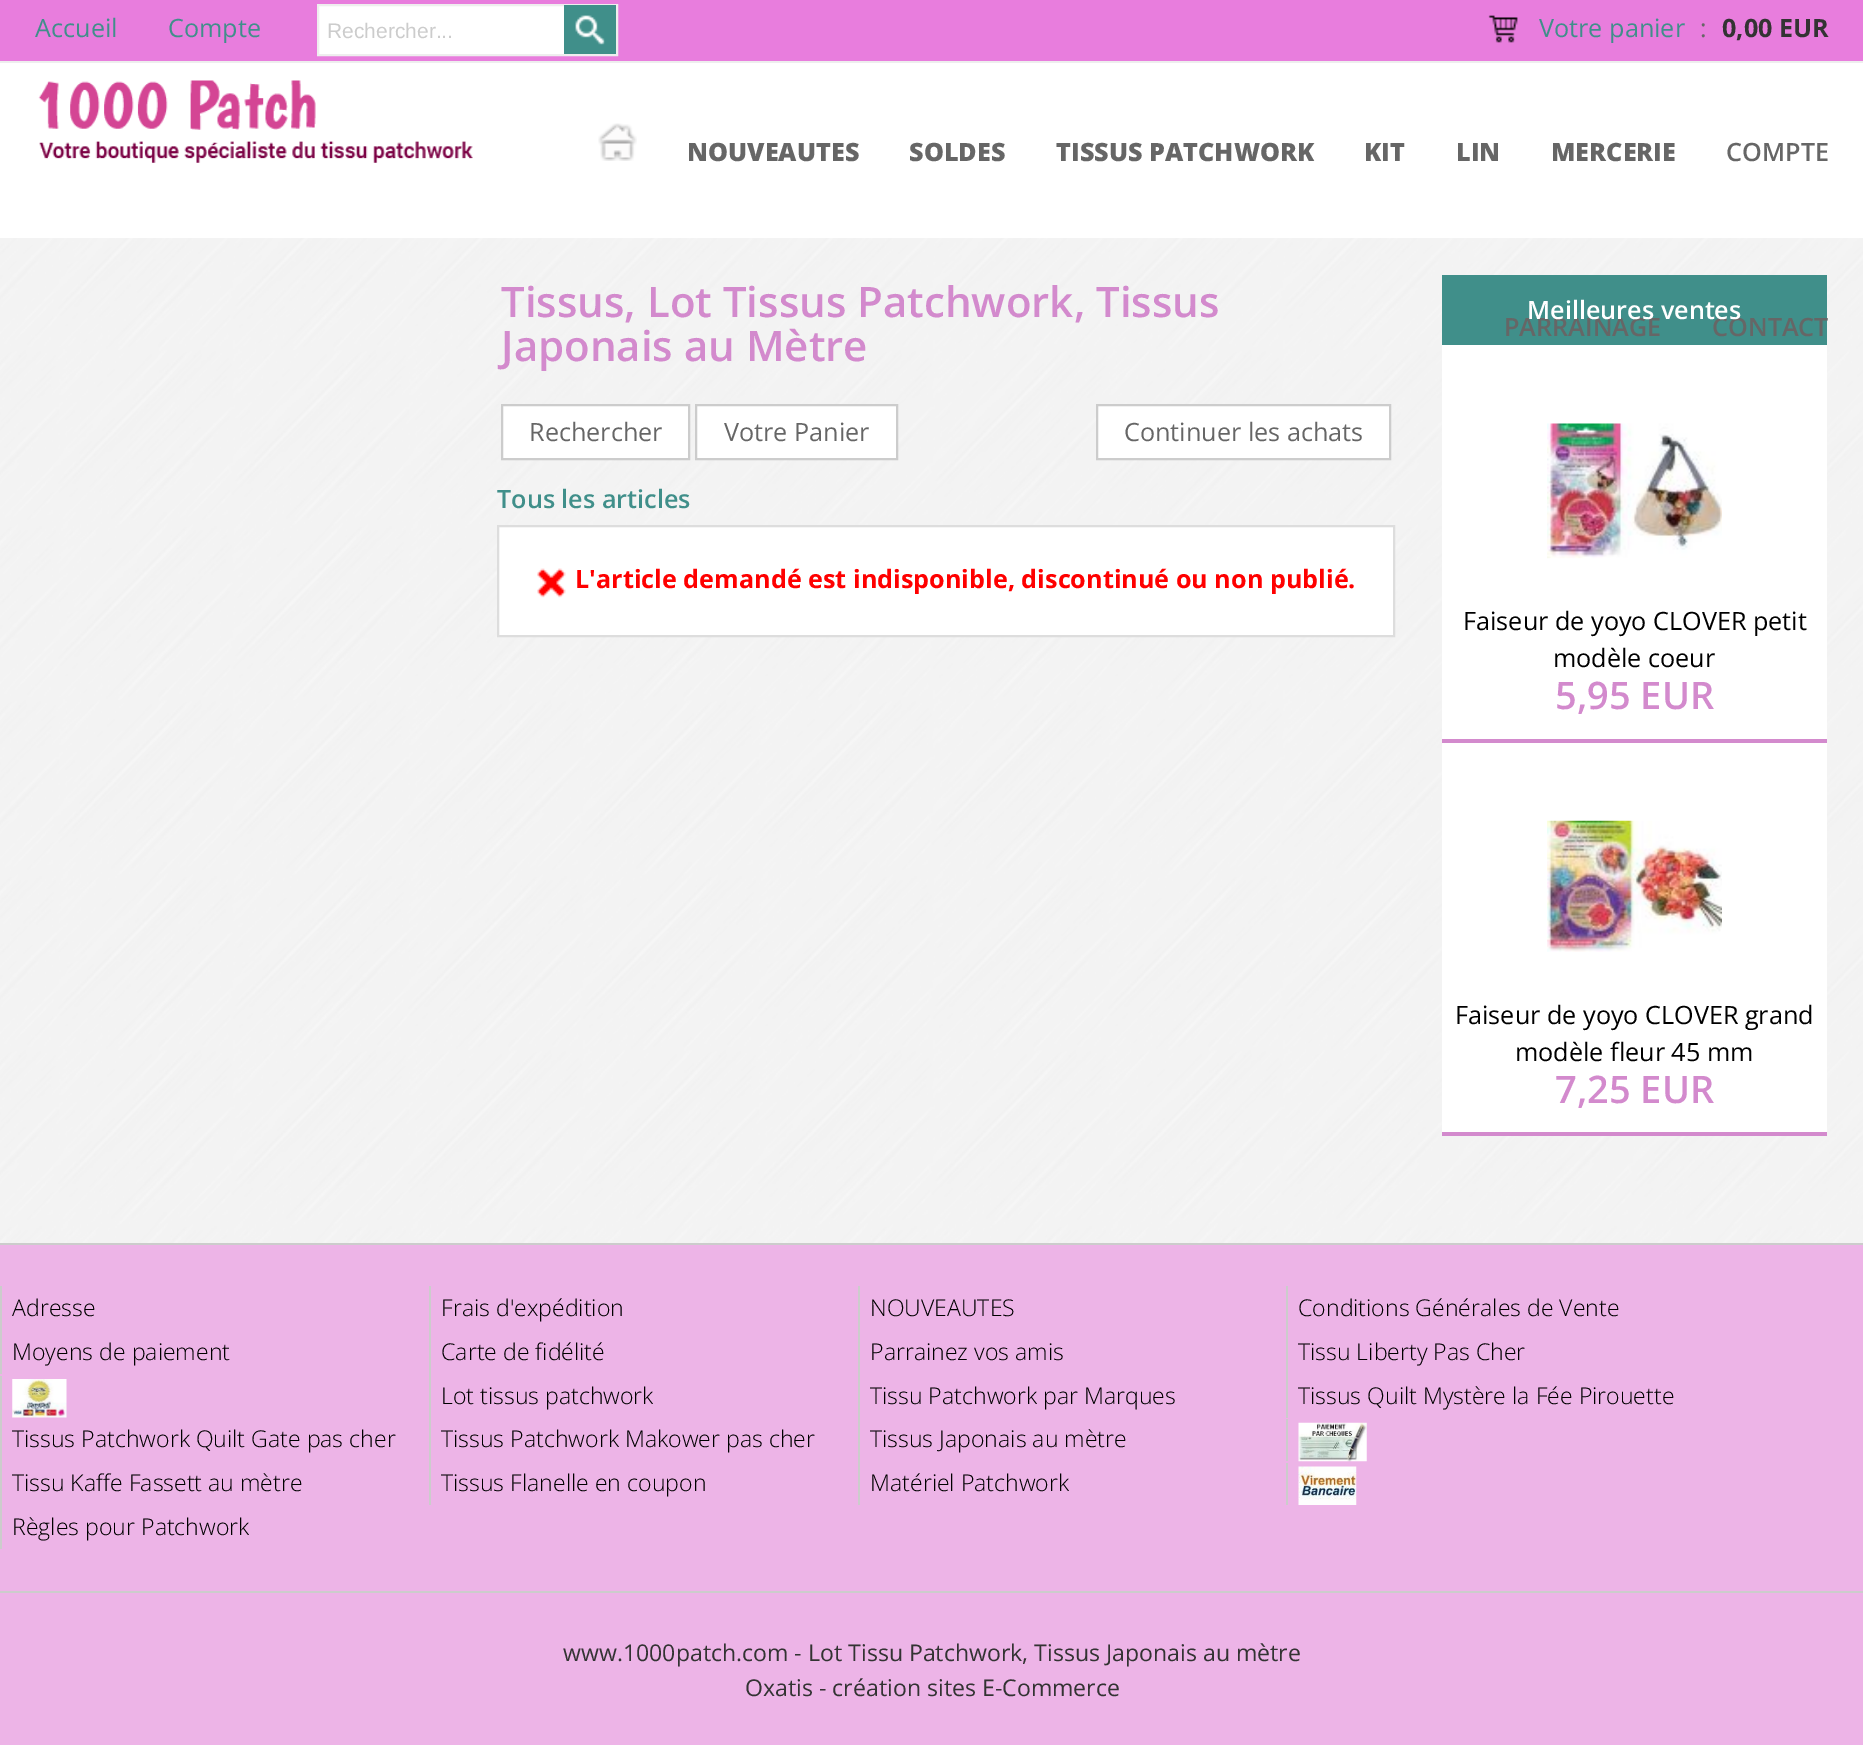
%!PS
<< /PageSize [1863 1745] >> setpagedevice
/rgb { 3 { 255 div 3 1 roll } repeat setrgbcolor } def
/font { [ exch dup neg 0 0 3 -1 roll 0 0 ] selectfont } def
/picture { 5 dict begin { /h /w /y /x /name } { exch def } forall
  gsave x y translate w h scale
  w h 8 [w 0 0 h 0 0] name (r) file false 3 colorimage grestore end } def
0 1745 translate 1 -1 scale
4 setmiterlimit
255 255 255 rgb
0 0 1863 1745 rectfill
[
  [0 0 1863 61 232 125 221]
  [0 61 1863 2 238 238 238]
  [319 6 245 48 255 255 255]
] { aload pop rgb rectfill } forall
238 238 238 rgb
2 setlinewidth
318 5 299 50 rectstroke
64 143 138 rgb
564 5 52 49 rectfill
(img/1.rgb) 575 15 30 30 picture
(img/2.rgb) 1488 15 30 28 picture
(img/3.rgb) 38 80 435 83 picture
(img/4.rgb) 598 123 39 38 picture
(img/5.rgb) 0 238 1863 1005 picture
255 255 255 rgb
502 405 moveto 689 405 lineto 689 459 lineto 502 459 lineto closepath gsave fill grestore
204 204 204 rgb
stroke
255 255 255 rgb
696 405 moveto 897 405 lineto 897 459 lineto 696 459 lineto closepath gsave fill grestore
204 204 204 rgb
stroke
255 255 255 rgb
1097 405 moveto 1390 405 lineto 1390 459 lineto 1097 459 lineto closepath gsave fill grestore
204 204 204 rgb
stroke
255 255 255 rgb
498 526 moveto 1394 526 lineto 1394 636 lineto 498 636 lineto closepath gsave fill grestore
221 221 221 rgb
stroke
(img/6.rgb) 537 568 29 30 picture
[
  [1442 345 385 787 255 255 255]
  [1442 275 385 70 64 143 138]
  [1442 739 385 4 211 138 205]
] { aload pop rgb rectfill } forall
(img/7.rgb) 1547 423 175 136 picture
1442 1132 385 4 rectfill
(img/8.rgb) 1547 820 175 132 picture
[
  [0 1245 1863 500 237 180 231]
  [0 1243 1863 2 204 204 204]
  [0 1591 1863 2 204 204 204]
  [0 1286 2 88 204 204 204]
  [429 1286 2 219 204 204 204]
  [858 1286 2 219 204 204 204]
  [1286 1286 2 132 204 204 204]
  [0 1376 2 173 204 204 204]
] { aload pop rgb rectfill } forall
(img/9.rgb) 12 1379 55 39 picture
1286 1419 2 42 rectfill
(img/10.rgb) 1298 1422 69 40 picture
1286 1463 2 42 rectfill
(img/11.rgb) 1298 1466 59 39 picture
/OpenSans-Regular 25.2 font
64 143 138 rgb
35 37 moveto (Accueil) show
168 37 moveto (Compte) show
/LiberationSans-Regular 21 font
204 204 204 rgb
327 38 moveto (Rechercher...) show
/OpenSans-Regular 25.2 font
64 143 138 rgb
1539 37 moveto (Votre panier) show
102 102 102 rgb
1700 37 moveto (:) show
/OpenSans-Bold 25.2 font
51 51 51 rgb
1722 37 moveto (0,00 EUR) show
/OpenSans-ExtraBold 25.2 font
102 102 102 rgb
[
  [(NOUVEAUTES) 687 161]
  [(SOLDES) 909 161]
  [(TISSUS PATCHWORK) 1056 161]
  [(KIT) 1364 161]
  [(LIN) 1456 161]
  [(MERCERIE) 1551 161]
] { aload pop moveto show } forall
/OpenSans-SemiBold 25.2 font
[
  [(COMPTE) 1726 161]
  [(PARRAINAGE) 1504 336]
  [(CONTACT) 1712 336]
] { aload pop moveto show } forall
/OpenSans-SemiBold 42 font
211 138 205 rgb
501 317 moveto (Tissus, Lot Tissus Patchwork, Tissus) show
501 361 moveto (Japonais au Mètre) show
/OpenSans-Regular 25.2 font
102 102 102 rgb
[
  [(Rechercher) 529 441]
  [(Votre Panier) 724 441]
  [(Continuer les achats) 1124 441]
] { aload pop moveto show } forall
/OpenSans-SemiBold 25.2 font
64 143 138 rgb
497 508 moveto (Tous les articles) show
/OpenSans-Bold 25.2 font
255 0 0 rgb
575 588 moveto (L'article demandé est indisponible, discontinué ou non publié.) show
/OpenSans-SemiBold 25.2 font
255 255 255 rgb
1527 319 moveto (Meilleures ventes) show
/OpenSans-Regular 25.2 font
0 0 0 rgb
1463 630 moveto (Faiseur de yoyo CLOVER petit) show
1553 667 moveto (modèle coeur) show
/OpenSans-SemiBold 38 font
211 138 205 rgb
1555 709 moveto (5,95 EUR) show
/OpenSans-Regular 25.2 font
0 0 0 rgb
1455 1024 moveto (Faiseur de yoyo CLOVER grand) show
1515 1061 moveto (modèle fleur 45 mm) show
/OpenSans-SemiBold 38 font
211 138 205 rgb
1555 1103 moveto (7,25 EUR) show
/OpenSans-Light 23.1 font
0 0 0 rgb
[
  [(Adresse) 12 1316]
  [(Frais d'expédition) 441 1316]
  [(NOUVEAUTES) 870 1316]
  [(Conditions Générales de Vente) 1298 1316]
  [(Moyens de paiement) 12 1360]
  [(Carte de fidélité) 441 1360]
  [(Parrainez vos amis) 870 1360]
  [(Tissu Liberty Pas Cher) 1298 1360]
  [(Lot tissus patchwork) 441 1404]
  [(Tissu Patchwork par Marques) 870 1404]
  [(Tissus Quilt Mystère la Fée Pirouette) 1298 1404]
  [(Tissus Patchwork Quilt Gate pas cher) 12 1447]
  [(Tissus Patchwork Makower pas cher) 441 1447]
  [(Tissus Japonais au mètre) 870 1447]
  [(Tissu Kaffe Fassett au mètre) 12 1491]
  [(Tissus Flanelle en coupon) 441 1491]
  [(Matériel Patchwork) 870 1491]
  [(Règles pour Patchwork) 12 1535]
] { aload pop moveto show } forall
/OpenSans-Regular 23.1 font
51 51 51 rgb
563 1661 moveto (www.1000patch.com - Lot Tissu Patchwork, Tissus Japonais au mètre) show
745 1696 moveto (Oxatis - création sites E-Commerce) show
showpage
